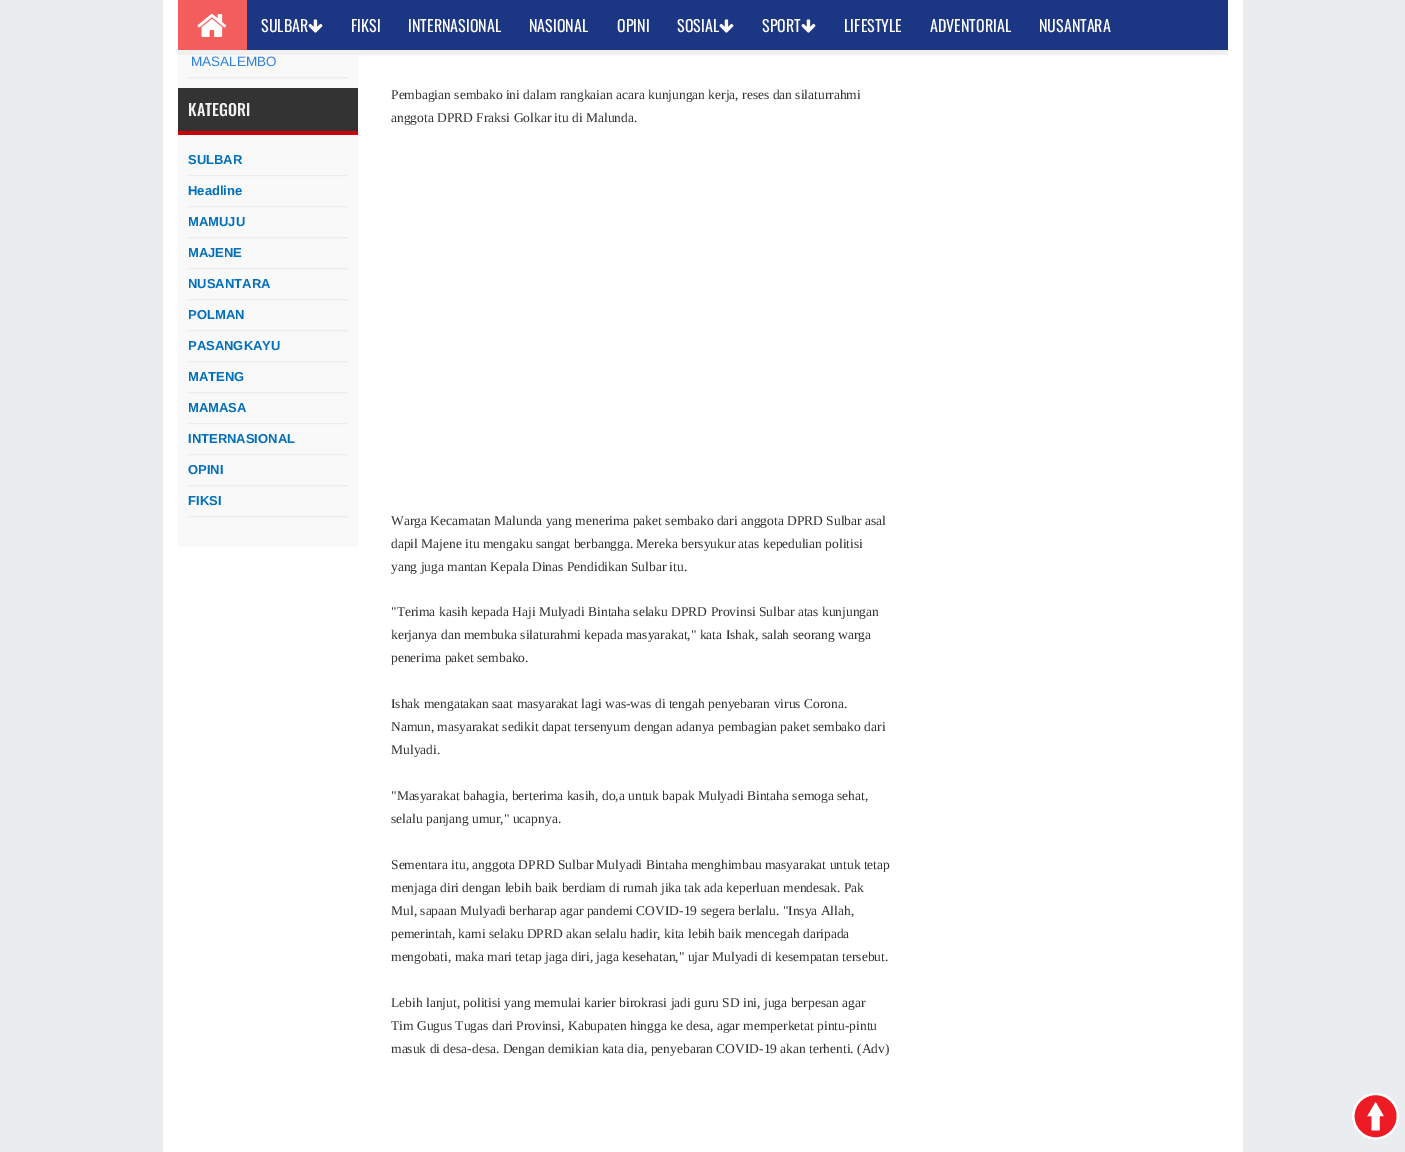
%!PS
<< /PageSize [1405 1152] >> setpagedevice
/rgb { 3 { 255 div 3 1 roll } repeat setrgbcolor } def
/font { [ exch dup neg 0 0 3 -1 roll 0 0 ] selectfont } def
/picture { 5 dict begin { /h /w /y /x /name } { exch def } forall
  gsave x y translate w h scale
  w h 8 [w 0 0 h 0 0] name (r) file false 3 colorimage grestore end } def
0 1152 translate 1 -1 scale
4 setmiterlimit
234 237 240 rgb
0 0 1405 1152 rectfill
[
  [163 0 1080 1152 255 255 255]
  [178 50 1050 5 240 240 240]
  [247 0 981 50 27 54 130]
  [178 0 69 50 243 93 92]
] { aload pop rgb rectfill } forall
(img/1.rgb) 197 14 30 23 picture
(img/2.rgb) 308 19 15 14 picture
(img/2.rgb) 719 19 15 14 picture
(img/2.rgb) 801 19 15 14 picture
249 249 249 rgb
178 55 180 492 rectfill
224 224 224 rgb
[1 1] 0 setdash
188 77.5 moveto 348 77.5 lineto stroke
51 51 51 rgb
178 88 180 43 rectfill
204 0 0 rgb
178 131 180 4 rectfill
224 224 224 rgb
188 175.5 moveto 348 175.5 lineto stroke
188 206.5 moveto 348 206.5 lineto stroke
188 237.5 moveto 348 237.5 lineto stroke
188 268.5 moveto 348 268.5 lineto stroke
188 299.5 moveto 348 299.5 lineto stroke
188 330.5 moveto 348 330.5 lineto stroke
188 361.5 moveto 348 361.5 lineto stroke
188 392.5 moveto 348 392.5 lineto stroke
188 423.5 moveto 348 423.5 lineto stroke
188 454.5 moveto 348 454.5 lineto stroke
188 485.5 moveto 348 485.5 lineto stroke
188 516.5 moveto 348 516.5 lineto stroke
(img/3.rgb) 1352 1093 47 47 picture
/Oswald-Regular 16 font
255 255 255 rgb
[
  [(SULBAR) 261 32]
  [(FIKSI) 351 32]
  [(INTERNASIONAL) 408 32]
  [(NASIONAL) 529 32]
  [(OPINI) 617 32]
  [(SOSIAL) 677 32]
  [(SPORT) 762 32]
  [(LIFESTYLE) 844 32]
  [(ADVENTORIAL) 930 32]
  [(NUSANTARA) 1039 32]
] { aload pop moveto show } forall
/LiberationSans-Regular 13.5 font
47 131 221 rgb
191 66 moveto (MASALEMBO) show
/Oswald-Medium 16 font
241 241 241 rgb
188 116 moveto (KATEGORI) show
/LiberationSans-Bold 13 font
1 111 186 rgb
[
  [(SULBAR) 188 164]
  [(Headline) 188 195]
  [(MAMUJU) 188 226]
  [(MAJENE) 188 257]
  [(NUSANTARA) 188 288]
  [(POLMAN) 188 319]
  [(PASANGKAYU) 188 350]
  [(MATENG) 188 381]
  [(MAMASA) 188 412]
  [(INTERNASIONAL) 188 443]
  [(OPINI) 188 474]
  [(FIKSI) 188 505]
] { aload pop moveto show } forall
/LiberationSerif-Regular 13.5 font
51 51 51 rgb
[
  [(Pembagian sembako ini dalam rangkaian acara kunjungan kerja, reses dan silaturrahmi) 391 99]
  [(anggota DPRD Fraksi Golkar itu di Malunda.) 391 122]
  [(Warga Kecamatan Malunda yang menerima paket sembako dari anggota DPRD Sulbar asal) 391 525]
  [(dapil Majene itu mengaku sangat berbangga. Mereka bersyukur atas kepedulian politisi) 391 548]
  [(yang juga mantan Kepala Dinas Pendidikan Sulbar itu.) 391 571]
  [("Terima kasih kepada Haji Mulyadi Bintaha selaku DPRD Provinsi Sulbar atas kunjungan) 391 616]
  [(kerjanya dan membuka silaturahmi kepada masyarakat," kata Ishak, salah seorang warga) 391 639]
  [(penerima paket sembako.) 391 662]
  [(Ishak mengatakan saat masyarakat lagi was-was di tengah penyebaran virus Corona.) 391 708]
  [(Namun, masyarakat sedikit dapat tersenyum dengan adanya pembagian paket sembako dari) 391 731]
  [(Mulyadi.) 391 754]
  [("Masyarakat bahagia, berterima kasih, do,a untuk bapak Mulyadi Bintaha semoga sehat,) 391 800]
  [(selalu panjang umur," ucapnya.) 391 823]
  [(Sementara itu, anggota DPRD Sulbar Mulyadi Bintaha menghimbau masyarakat untuk tetap) 391 869]
  [(menjaga diri dengan lebih baik berdiam di rumah jika tak ada keperluan mendesak. Pak) 391 892]
  [(Mul, sapaan Mulyadi berharap agar pandemi COVID-19 segera berlalu. "Insya Allah,) 391 915]
  [(pemerintah, kami selaku DPRD akan selalu hadir, kita lebih baik mencegah daripada) 391 938]
  [(mengobati, maka mari tetap jaga diri, jaga kesehatan," ujar Mulyadi di kesempatan tersebut.) 391 961]
  [(Lebih lanjut, politisi yang memulai karier birokrasi jadi guru SD ini, juga berpesan agar) 391 1007]
  [(Tim Gugus Tugas dari Provinsi, Kabupaten hingga ke desa, agar memperketat pintu-pintu) 391 1030]
  [(masuk di desa-desa. Dengan demikian kata dia, penyebaran COVID-19 akan terhenti. \(Adv\)) 391 1053]
] { aload pop moveto show } forall
showpage
